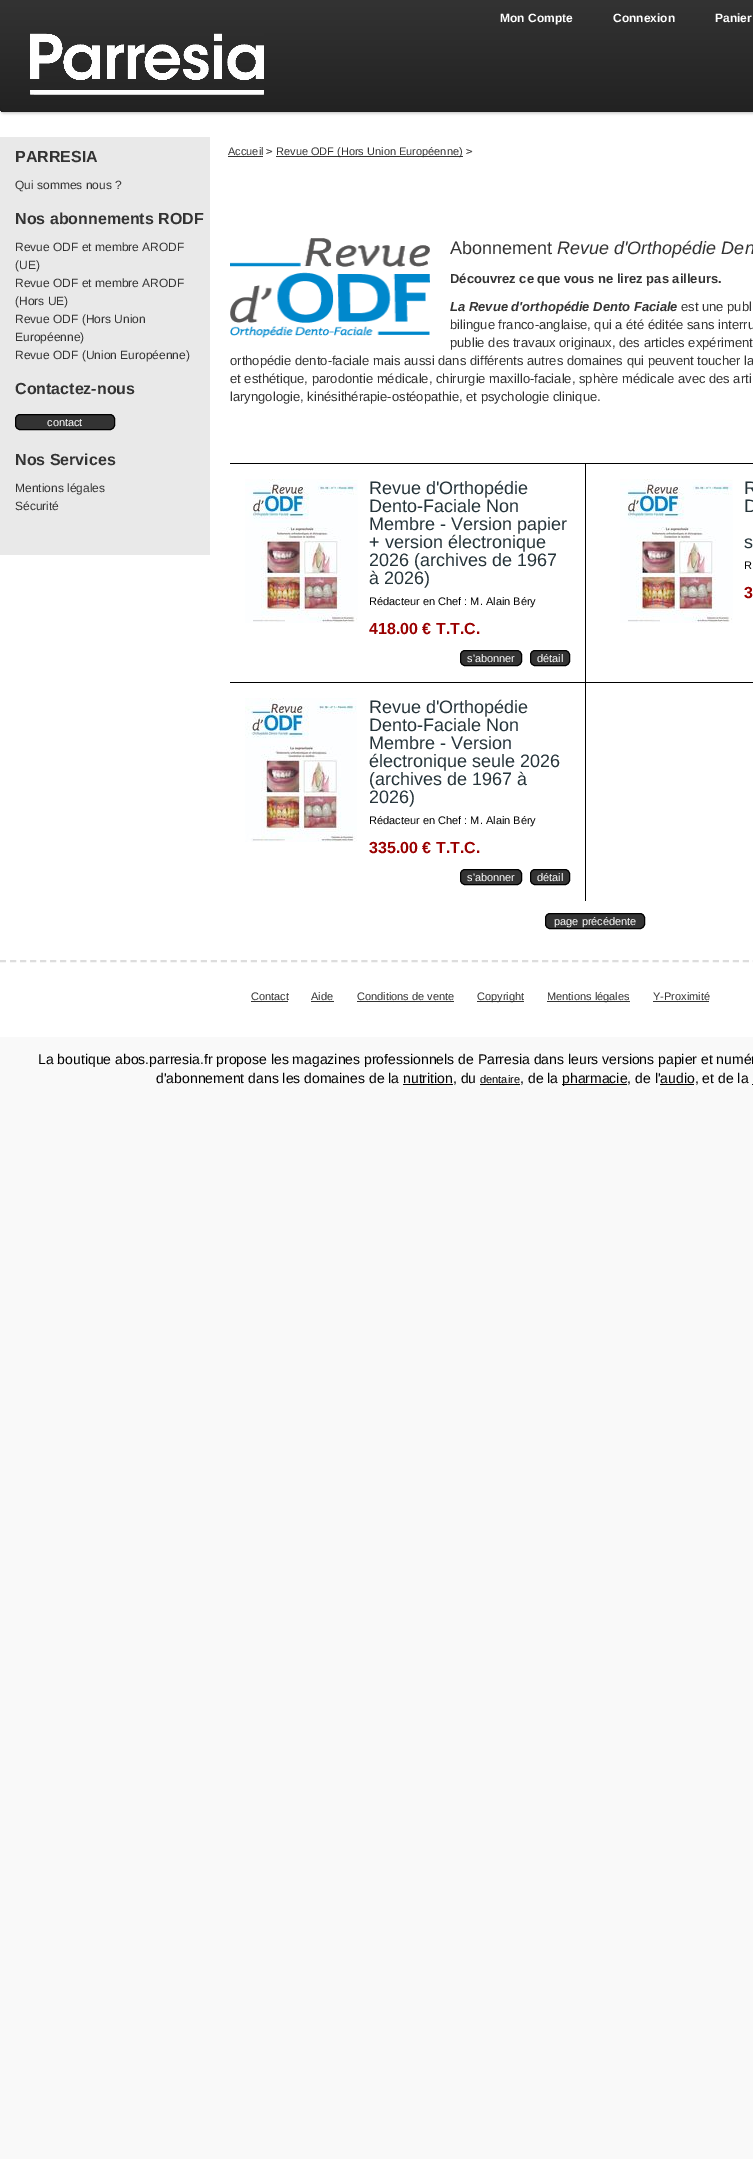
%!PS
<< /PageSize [753 2159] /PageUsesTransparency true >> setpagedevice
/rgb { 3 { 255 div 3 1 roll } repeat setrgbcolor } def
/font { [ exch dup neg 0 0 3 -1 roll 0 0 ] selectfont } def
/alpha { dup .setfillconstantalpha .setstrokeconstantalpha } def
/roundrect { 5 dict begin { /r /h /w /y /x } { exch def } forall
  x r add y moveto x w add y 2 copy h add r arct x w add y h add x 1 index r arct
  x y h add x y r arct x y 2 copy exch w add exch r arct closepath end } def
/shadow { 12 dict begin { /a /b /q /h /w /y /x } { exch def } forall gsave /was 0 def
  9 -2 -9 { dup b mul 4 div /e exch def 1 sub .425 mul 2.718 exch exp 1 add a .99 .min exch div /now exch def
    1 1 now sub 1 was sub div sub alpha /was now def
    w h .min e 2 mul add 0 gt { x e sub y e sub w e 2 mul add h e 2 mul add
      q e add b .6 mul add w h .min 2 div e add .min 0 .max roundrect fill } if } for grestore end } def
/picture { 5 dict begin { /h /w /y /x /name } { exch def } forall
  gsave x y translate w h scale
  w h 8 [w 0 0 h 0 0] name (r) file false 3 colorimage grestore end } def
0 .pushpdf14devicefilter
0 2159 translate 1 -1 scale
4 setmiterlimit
249 249 249 rgb
0 0 753 2159 rectfill
255 255 255 rgb
0 108 753 929 rectfill
0 0 0 rgb
0 1 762 112 4 1.5 0.25 shadow
gsave 0 0 moveto 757 0 lineto 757 108 lineto 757 110 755 112 753 112 curveto 4 112 lineto 2 112 0 110 0 108 curveto closepath clip newpath
<< /ShadingType 2 /ColorSpace /DeviceRGB /Coords [480 0 480 112] /Extend [true true] /Function << /FunctionType 2 /Domain [0 1] /C0 [0.2 0.2 0.2] /C1 [0.133 0.133 0.133] /N 1 >> >> shfill grestore
0.1 alpha
0 107 moveto 0 110 1 112 4 112 curveto 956 112 lineto 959 112 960 110 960 107 curveto 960 109 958 111 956 111 curveto 4 111 lineto 2 111 0 109 0 107 curveto closepath fill
1 alpha
(img/1.rgb) 30 33 234 62 picture
233 233 233 rgb
0 137 210 418 rectfill
51 51 51 rgb
15.5 414.5 99 15 4.5 roundrect gsave fill grestore
0 0 0 rgb
stroke
(img/2.rgb) 266 149 7 5 picture
51 51 51 rgb
228 156 35 1 rectfill
(img/2.rgb) 466 149 7 5 picture
276 156 187 1 rectfill
(img/3.rgb) 230 238 200 100 picture
0 0 0 rgb
230 463 523 1 rectfill
585 464 1 218 rectfill
(img/4.rgb) 245 479 113 144 picture
51 51 51 rgb
460.5 650.5 61 15 4.5 roundrect gsave fill grestore
0 0 0 rgb
stroke
51 51 51 rgb
530.5 650.5 39 15 4.5 roundrect gsave fill grestore
0 0 0 rgb
stroke
(img/4.rgb) 620 479 113 144 picture
230 682 523 1 rectfill
585 683 1 218 rectfill
(img/5.rgb) 245 698 112 144 picture
51 51 51 rgb
460.5 869.5 61 15 4.5 roundrect gsave fill grestore
0 0 0 rgb
stroke
51 51 51 rgb
530.5 869.5 39 15 4.5 roundrect gsave fill grestore
0 0 0 rgb
stroke
51 51 51 rgb
545.5 913.5 99 15 4.5 roundrect gsave fill grestore
0 0 0 rgb
stroke
221 221 221 rgb
2 setlinewidth
[6 4.04] 0 setdash
0 961 moveto 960 961 lineto stroke
[
  [251 1001 37 1 51 51 51]
  [311 1001 23 1 51 51 51]
  [357 1001 97 1 51 51 51]
  [477 1001 47 1 51 51 51]
  [547 1001 83 1 51 51 51]
  [653 1001 56 1 51 51 51]
  [403 1084 50 1 0 0 0]
  [480 1084 40 1 0 0 0]
  [562 1084 65 1 0 0 0]
  [660 1084 34 1 0 0 0]
  [752 1084 1 1 0 0 0]
] { aload pop rgb rectfill } forall
/LiberationSans-Bold 12 font
255 255 255 rgb
[
  [(Mon Compte) 500 22]
  [(Connexion) 613 22]
  [(Panier) 715 22]
] { aload pop moveto show } forall
/LiberationSans-Bold 16 font
51 51 51 rgb
15 162 moveto (PARRESIA) show
/LiberationSans-Regular 12 font
15 189 moveto (Qui sommes nous ?) show
/LiberationSans-Bold 16 font
15 224 moveto (Nos abonnements RODF) show
/LiberationSans-Regular 12 font
[
  [(Revue ODF et membre ARODF) 15 251]
  [(\(UE\)) 15 269]
  [(Revue ODF et membre ARODF) 15 287]
  [(\(Hors UE\)) 15 305]
  [(Revue ODF \(Hors Union) 15 323]
  [(Européenne\)) 15 341]
  [(Revue ODF \(Union Européenne\)) 15 359]
] { aload pop moveto show } forall
/LiberationSans-Bold 16 font
15 394 moveto (Contactez-nous) show
/LiberationSans-Regular 11 font
255 255 255 rgb
47 426 moveto (contact) show
/LiberationSans-Bold 16 font
51 51 51 rgb
15 465 moveto (Nos Services) show
/LiberationSans-Regular 12 font
15 492 moveto (Mentions légales) show
15 510 moveto (Sécurité) show
/LiberationSans-Regular 11 font
228 155 moveto (Accueil) show
276 155 moveto (Revue ODF \(Hors Union Européenne\)) show
/LiberationSans-Regular 18 font
450 254 moveto (Abonnement) show
/LiberationSans-Italic 18 font
557 254 moveto (Revue d'Orthopédie Den) show
/LiberationSans-Bold 13 font
450 283 moveto (Découvrez ce que vous ne lirez pas ailleurs.) show
/LiberationSans-BoldItalic 13 font
450 311 moveto (La Revue d'orthopédie Dento Faciale) show
/LiberationSans-Regular 13 font
[
  [(est une publ) 681 311]
  [(bilingue franco-anglaise, qui a été éditée sans interru) 450 329]
  [(publie des travaux originaux, des articles expériment) 450 347]
  [(orthopédie dento-faciale mais aussi dans différents autres domaines qui peuvent toucher la) 230 365]
  [(et esthétique, parodontie médicale, chirurgie maxillo-faciale, sphère médicale avec des arti) 230 383]
  [(laryngologie, kinésithérapie-ostéopathie, et psychologie clinique.) 230 401]
] { aload pop moveto show } forall
/LiberationSans-Regular 18 font
38 52 58 rgb
[
  [(Revue d'Orthopédie) 369 494]
  [(Dento-Faciale Non) 369 512]
  [(Membre - Version papier) 369 530]
  [(+ version électronique) 369 548]
  [(2026 \(archives de 1967) 369 566]
  [(à 2026\)) 369 584]
] { aload pop moveto show } forall
/LiberationSans-Regular 11 font
0 0 0 rgb
369 605 moveto (Rédacteur en Chef : M. Alain Béry) show
/LiberationSans-Bold 16 font
153 0 0 rgb
369 634 moveto (418.00 € T.T.C.) show
/LiberationSans-Regular 11 font
255 255 255 rgb
467 662 moveto (s'abonner) show
537 662 moveto (détail) show
/LiberationSans-Regular 18 font
38 52 58 rgb
[
  [(R) 744 494]
  [(D) 744 512]
  [(s) 744 548]
] { aload pop moveto show } forall
/LiberationSans-Regular 11 font
0 0 0 rgb
744 569 moveto (R) show
/LiberationSans-Bold 16 font
153 0 0 rgb
744 598 moveto (3) show
/LiberationSans-Regular 18 font
38 52 58 rgb
[
  [(Revue d'Orthopédie) 369 713]
  [(Dento-Faciale Non) 369 731]
  [(Membre - Version) 369 749]
  [(électronique seule 2026) 369 767]
  [(\(archives de 1967 à) 369 785]
  [(2026\)) 369 803]
] { aload pop moveto show } forall
/LiberationSans-Regular 11 font
0 0 0 rgb
369 824 moveto (Rédacteur en Chef : M. Alain Béry) show
/LiberationSans-Bold 16 font
153 0 0 rgb
369 853 moveto (335.00 € T.T.C.) show
/LiberationSans-Regular 11 font
255 255 255 rgb
[
  [(s'abonner) 467 881]
  [(détail) 537 881]
  [(page précédente) 554 925]
] { aload pop moveto show } forall
51 51 51 rgb
[
  [(Contact) 251 1000]
  [(Aide) 311 1000]
  [(Conditions de vente) 357 1000]
  [(Copyright) 477 1000]
  [(Mentions légales) 547 1000]
  [(Y-Proximité) 653 1000]
] { aload pop moveto show } forall
/LiberationSans-Regular 14 font
0 0 0 rgb
38 1064 moveto (La boutique abos.parresia.fr propose les magazines professionnels de Parresia dans leurs versions papier et numér) show
156 1083 moveto (d'abonnement dans les domaines de la nutrition, du) show
/LiberationSans-Regular 11 font
480 1083 moveto (dentaire) show
/LiberationSans-Regular 14 font
520 1083 moveto (, de la) show
562 1083 moveto (pharmacie, de l'audio, et de la) show
.poppdf14devicefilter showpage
